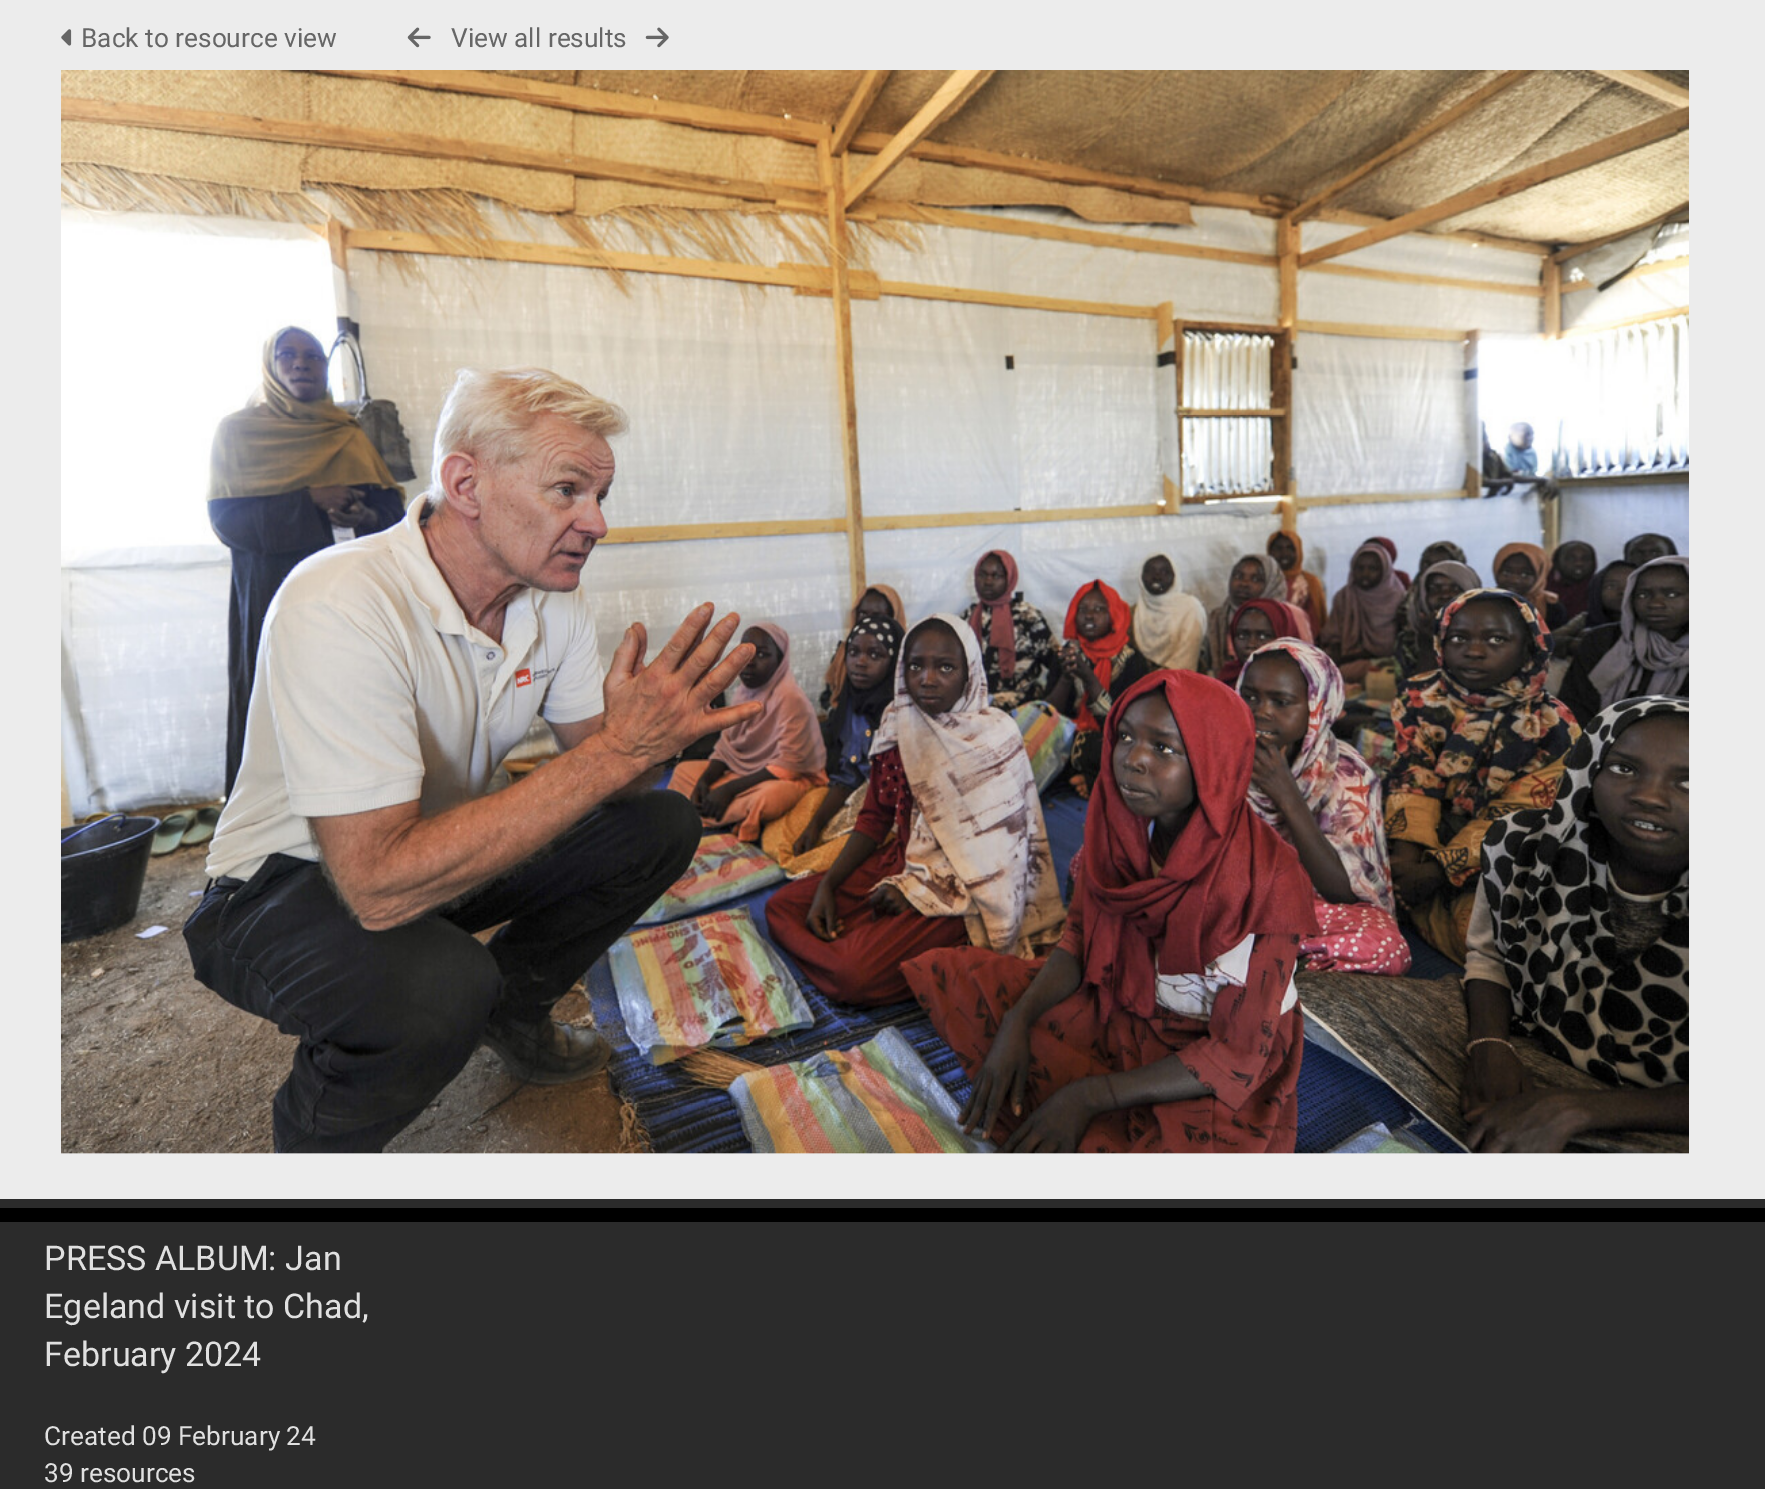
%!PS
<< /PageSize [1765 1489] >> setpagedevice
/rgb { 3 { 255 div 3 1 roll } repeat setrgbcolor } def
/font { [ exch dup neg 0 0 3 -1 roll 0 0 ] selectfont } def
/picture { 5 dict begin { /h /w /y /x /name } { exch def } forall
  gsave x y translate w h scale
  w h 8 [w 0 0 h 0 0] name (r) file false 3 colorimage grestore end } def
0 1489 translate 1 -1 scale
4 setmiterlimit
236 236 236 rgb
0 0 1765 1489 rectfill
(img/1.rgb) 61 29 11 17 picture
(img/2.rgb) 407 27 24 21 picture
(img/3.rgb) 645 27 24 21 picture
(img/4.rgb) 61 70 1628 1084 picture
[
  [0 1199 1765 9 43 43 43]
  [0 1208 1765 14 0 0 0]
  [0 1222 1765 267 43 43 43]
] { aload pop rgb rectfill } forall
/Roboto-Regular 26.25 font
102 102 102 rgb
81 47 moveto (Back to resource view) show
451 47 moveto (View all results) show
/Roboto-Regular 34.1 font
224 224 224 rgb
[
  [(PRESS ALBUM: Jan) 44 1270]
  [(Egeland visit to Chad,) 44 1318]
  [(February 2024) 44 1366]
] { aload pop moveto show } forall
/Roboto-Regular 26.25 font
44 1445 moveto (Created 09 February 24) show
44 1482 moveto (39 resources) show
showpage
